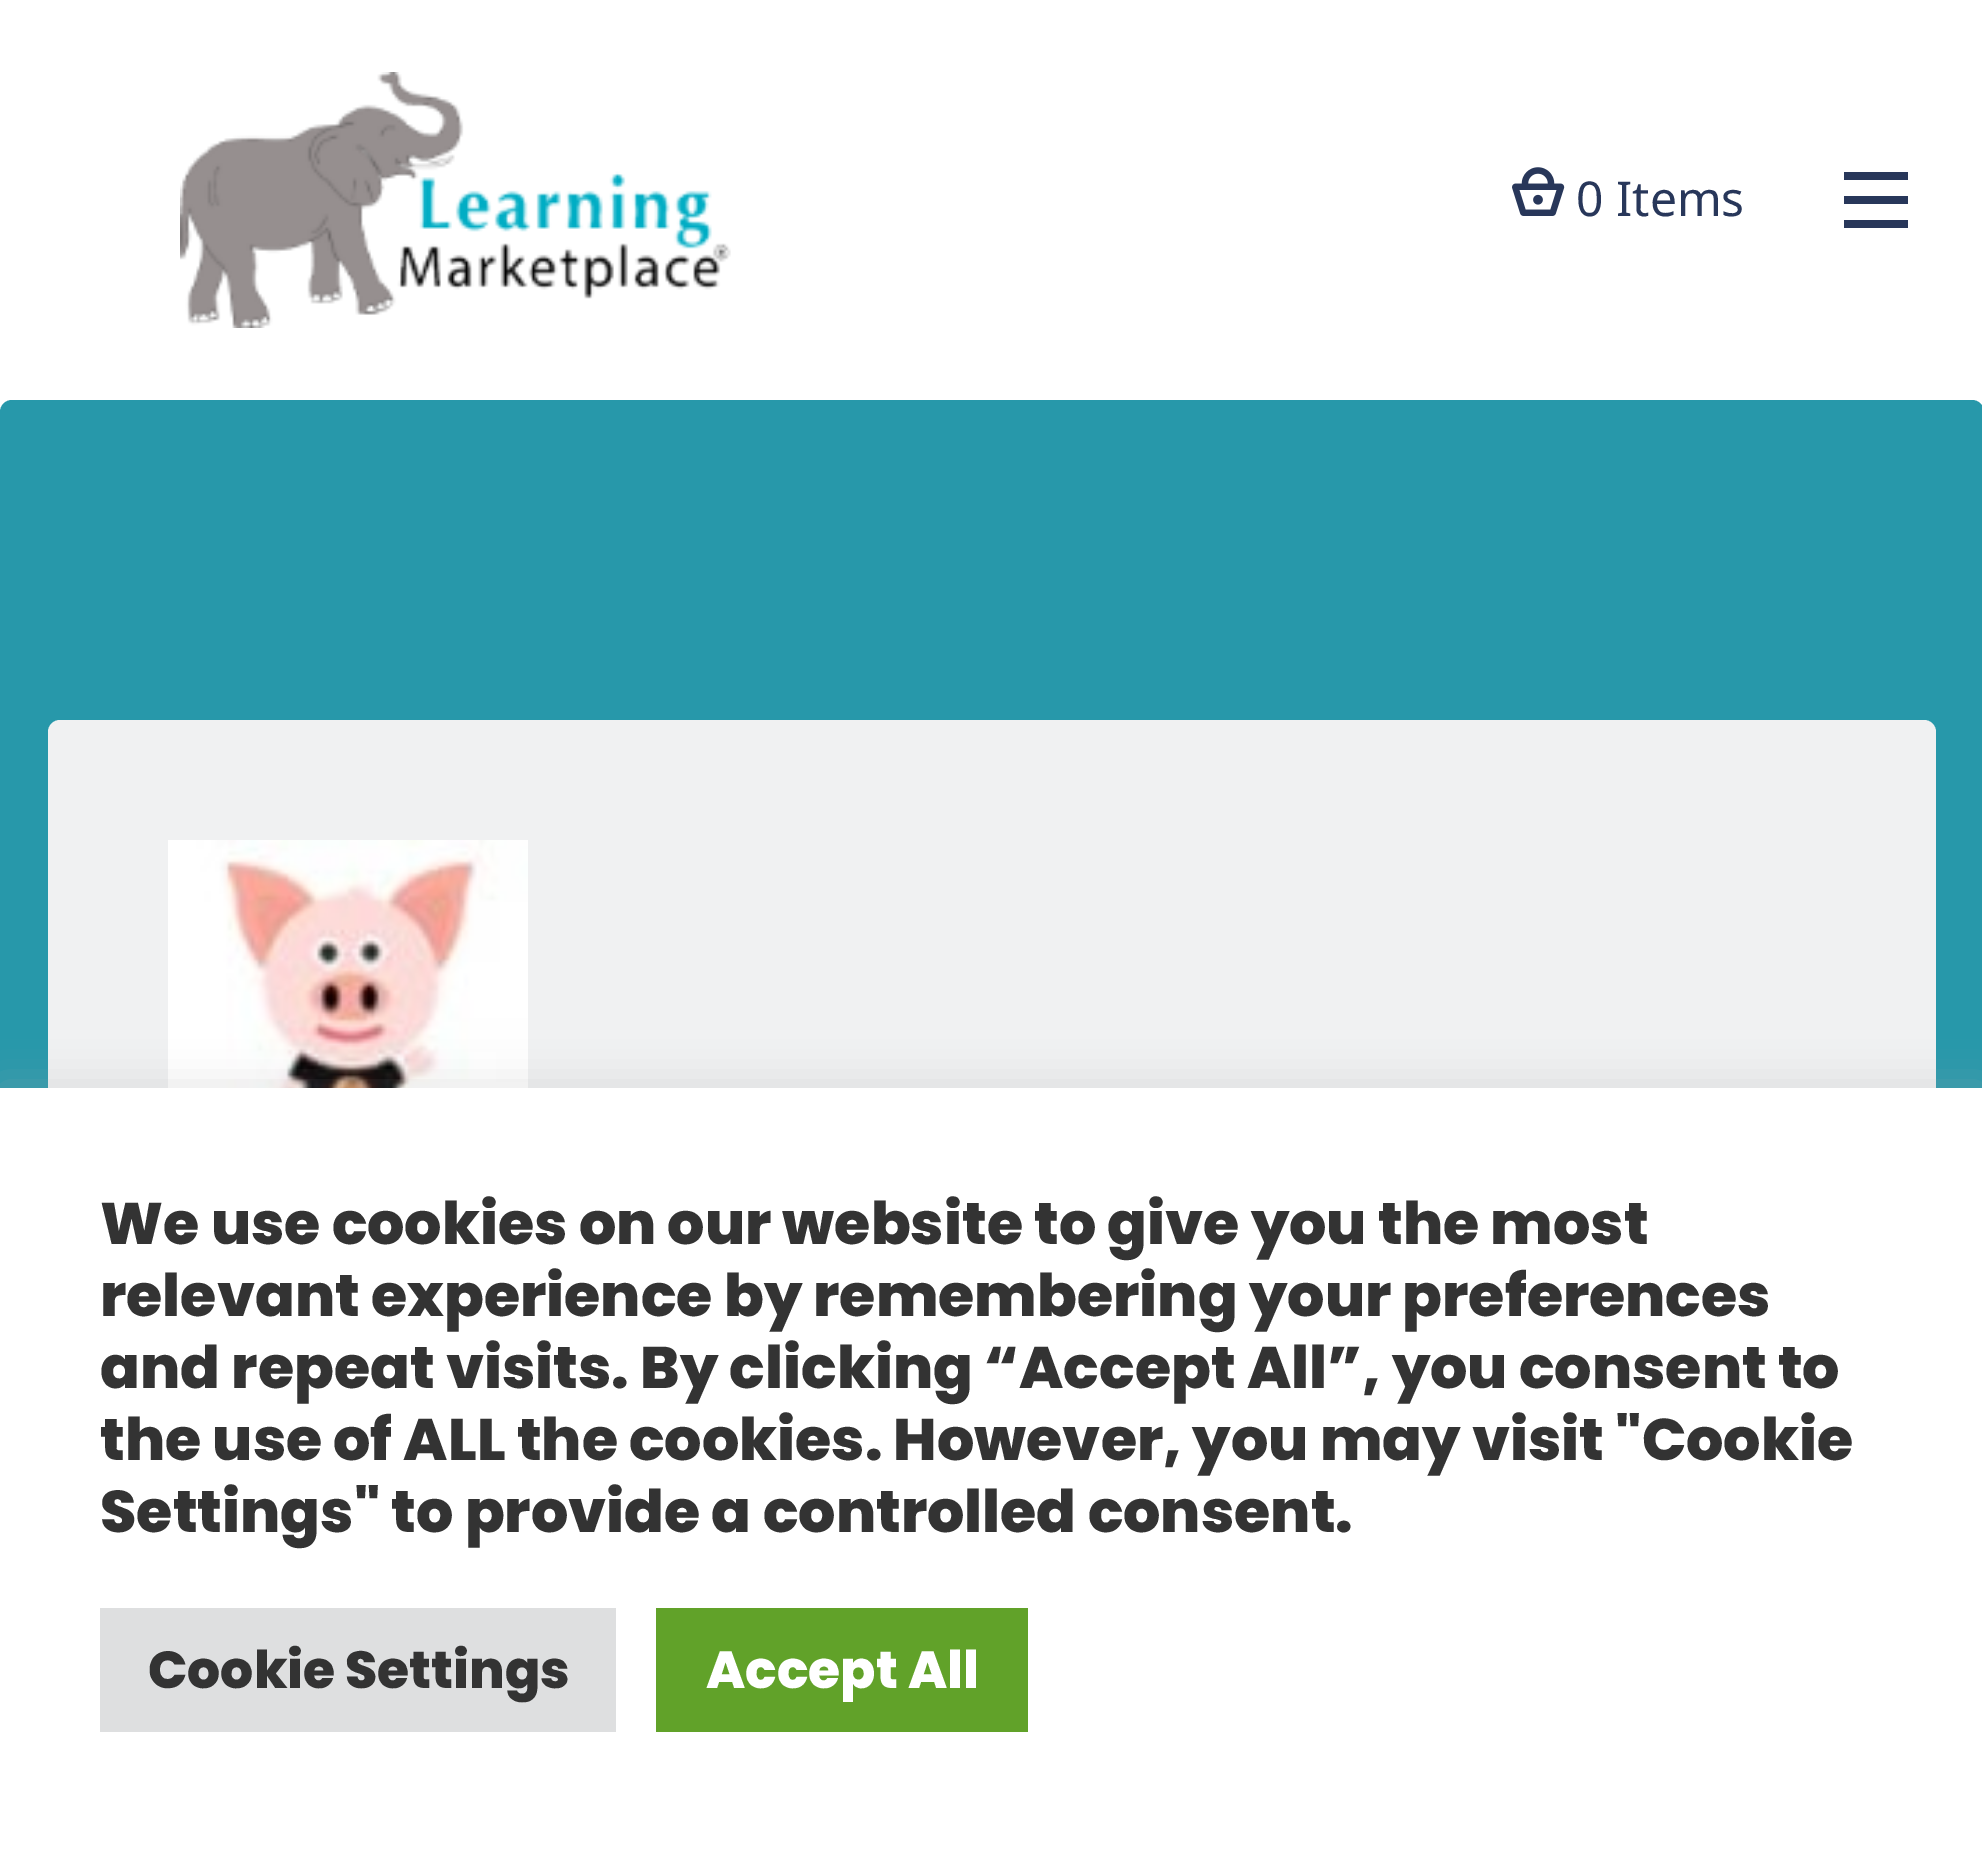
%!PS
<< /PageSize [1982 1849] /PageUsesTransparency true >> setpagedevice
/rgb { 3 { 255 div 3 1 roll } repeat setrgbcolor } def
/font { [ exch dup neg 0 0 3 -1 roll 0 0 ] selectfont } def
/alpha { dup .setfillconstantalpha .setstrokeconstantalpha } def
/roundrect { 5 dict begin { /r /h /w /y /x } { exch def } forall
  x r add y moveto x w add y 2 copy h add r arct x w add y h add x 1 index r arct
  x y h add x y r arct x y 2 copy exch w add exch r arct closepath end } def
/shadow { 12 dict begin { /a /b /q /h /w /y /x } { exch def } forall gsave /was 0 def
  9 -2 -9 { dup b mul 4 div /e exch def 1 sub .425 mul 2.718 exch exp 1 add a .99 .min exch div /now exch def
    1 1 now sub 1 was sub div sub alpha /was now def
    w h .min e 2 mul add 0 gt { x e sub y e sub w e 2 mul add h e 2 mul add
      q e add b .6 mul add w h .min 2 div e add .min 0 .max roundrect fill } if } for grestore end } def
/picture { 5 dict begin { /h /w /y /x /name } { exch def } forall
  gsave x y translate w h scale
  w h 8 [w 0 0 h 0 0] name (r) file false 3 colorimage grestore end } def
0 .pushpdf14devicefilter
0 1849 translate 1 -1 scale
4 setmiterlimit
255 255 255 rgb
0 0 1982 1849 rectfill
(img/1.rgb) 180 72 551 256 picture
(img/2.rgb) 1512 167 53 49 picture
[
  [1844 196 64 8 40 55 90]
  [1844 172 64 8 40 55 90]
  [1844 220 64 8 40 55 90]
] { aload pop rgb rectfill } forall
39 152 170 rgb
0 400 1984 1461 12 roundrect fill
240 241 242 rgb
48 720 1888 1112 12 roundrect fill
(img/3.rgb) 168 840 360 248 picture
172 171 171 rgb
0 1084 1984 764 0 20 0.3 shadow
[
  [0 1088 1982 761 255 255 255]
  [100 1608 516 124 222 223 224]
  [656 1608 372 124 97 162 41]
] { aload pop rgb rectfill } forall
/NotoSans-Regular 48 font
40 55 90 rgb
1576 216 moveto (0 Items) show
/Poppins-ExtraBold 58.7 font
51 51 51 rgb
[
  [(We use cookies on our website to give you the most) 100 1244]
  [(relevant experience by remembering your preferences) 100 1316]
  [(and repeat visits. By clicking “Accept All”, you consent to) 100 1388]
] { aload pop moveto show } forall
100 1460 moveto -0.1 0 32 (the use of ALL the cookies. However, you may visit "Cookie) widthshow
100 1532 moveto (Settings" to provide a controlled consent.) show
/Poppins-ExtraBold 52 font
148 1688 moveto (Cookie Settings) show
255 255 255 rgb
706 1688 moveto (Accept All) show
.poppdf14devicefilter showpage
